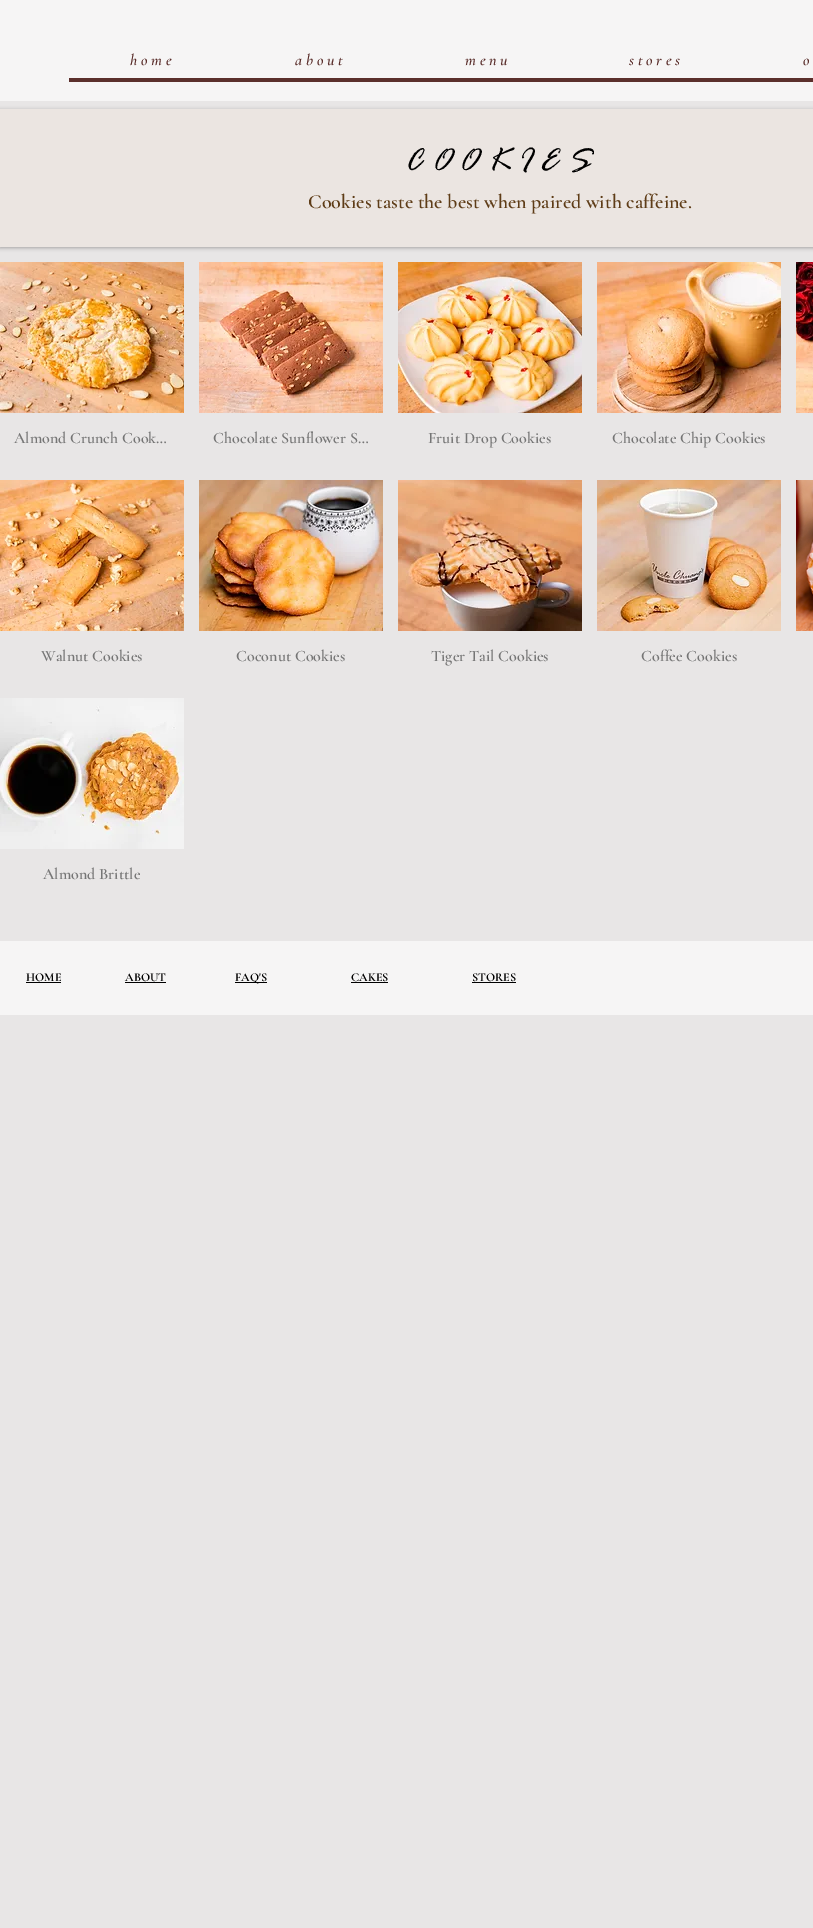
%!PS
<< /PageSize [813 1928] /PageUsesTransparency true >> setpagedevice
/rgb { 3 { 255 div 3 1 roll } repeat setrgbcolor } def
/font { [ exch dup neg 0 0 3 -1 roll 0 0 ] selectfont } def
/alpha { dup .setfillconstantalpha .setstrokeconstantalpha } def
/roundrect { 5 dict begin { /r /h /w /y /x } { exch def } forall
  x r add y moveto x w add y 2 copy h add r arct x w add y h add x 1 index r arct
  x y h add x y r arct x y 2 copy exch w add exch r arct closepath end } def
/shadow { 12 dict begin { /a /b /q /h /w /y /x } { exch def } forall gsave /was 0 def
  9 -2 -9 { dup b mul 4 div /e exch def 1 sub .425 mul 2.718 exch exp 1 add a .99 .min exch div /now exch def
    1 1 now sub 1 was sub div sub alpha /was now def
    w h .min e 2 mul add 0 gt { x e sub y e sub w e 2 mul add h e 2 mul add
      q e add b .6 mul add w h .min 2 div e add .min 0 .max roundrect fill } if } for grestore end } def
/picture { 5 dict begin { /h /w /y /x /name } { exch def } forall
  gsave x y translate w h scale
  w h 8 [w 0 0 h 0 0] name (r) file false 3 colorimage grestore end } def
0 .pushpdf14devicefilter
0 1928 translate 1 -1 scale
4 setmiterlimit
232 230 230 rgb
0 0 813 1928 rectfill
246 245 245 rgb
0 0 813 101 rectfill
91 47 44 rgb
69 78 744 4 rectfill
0 0 0 rgb
0 110 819 138 0 2 0.3 shadow
235 229 225 rgb
0 109 813 138 rectfill
(img/1.rgb) 796 262 17 151 picture
(img/2.rgb) 0 262 184 151 picture
(img/3.rgb) 199 262 184 151 picture
(img/4.rgb) 398 262 184 151 picture
(img/5.rgb) 597 262 184 151 picture
(img/6.rgb) 796 480 17 151 picture
(img/7.rgb) 0 480 184 151 picture
(img/8.rgb) 199 480 184 151 picture
(img/9.rgb) 398 480 184 151 picture
(img/10.rgb) 597 480 184 151 picture
(img/11.rgb) 0 698 184 151 picture
[
  [0 941 813 74 246 245 245]
  [26 982 35 1 0 0 0]
  [125 982 41 1 0 0 0]
  [235 982 32 1 0 0 0]
  [351 982 37 1 0 0 0]
  [472 982 44 1 0 0 0]
] { aload pop rgb rectfill } forall
/CormorantGaramond-SemiBoldItalic 16 font
91 47 44 rgb
[
  [(h o m e) 130 65]
  [(a b o u t) 295 65]
  [(m e n u) 465 65]
  [(s t o r e s) 629 65]
  [(o) 803 65]
] { aload pop moveto show } forall
/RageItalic-Regular 34 font
0 0 0 rgb
405 171 moveto (C O O K I E S) show
/CormorantGaramond-SemiBold 20 font
94 60 23 rgb
308 208 moveto (Cookies taste the best when paired with caffeine.) show
/CormorantGaramond-SemiBold 16 font
117 117 117 rgb
[
  [(Almond Crunch Cook…) 14 443]
  [(Chocolate Sunflower S…) 213 443]
  [(Fruit Drop Cookies) 428 443]
  [(Chocolate Chip Cookies) 612 443]
  [(Walnut Cookies) 41 661]
  [(Coconut Cookies) 236 661]
  [(Tiger Tail Cookies) 431 661]
  [(Coffee Cookies) 641 661]
  [(Almond Brittle) 43 879]
] { aload pop moveto show } forall
/CormorantGaramond-Bold 12 font
0 0 0 rgb
[
  [(HOME) 26 981]
  [(ABOUT) 125 981]
  [(FAQ'S) 235 981]
  [(CAKES) 351 981]
  [(STORES) 472 981]
] { aload pop moveto show } forall
.poppdf14devicefilter showpage
